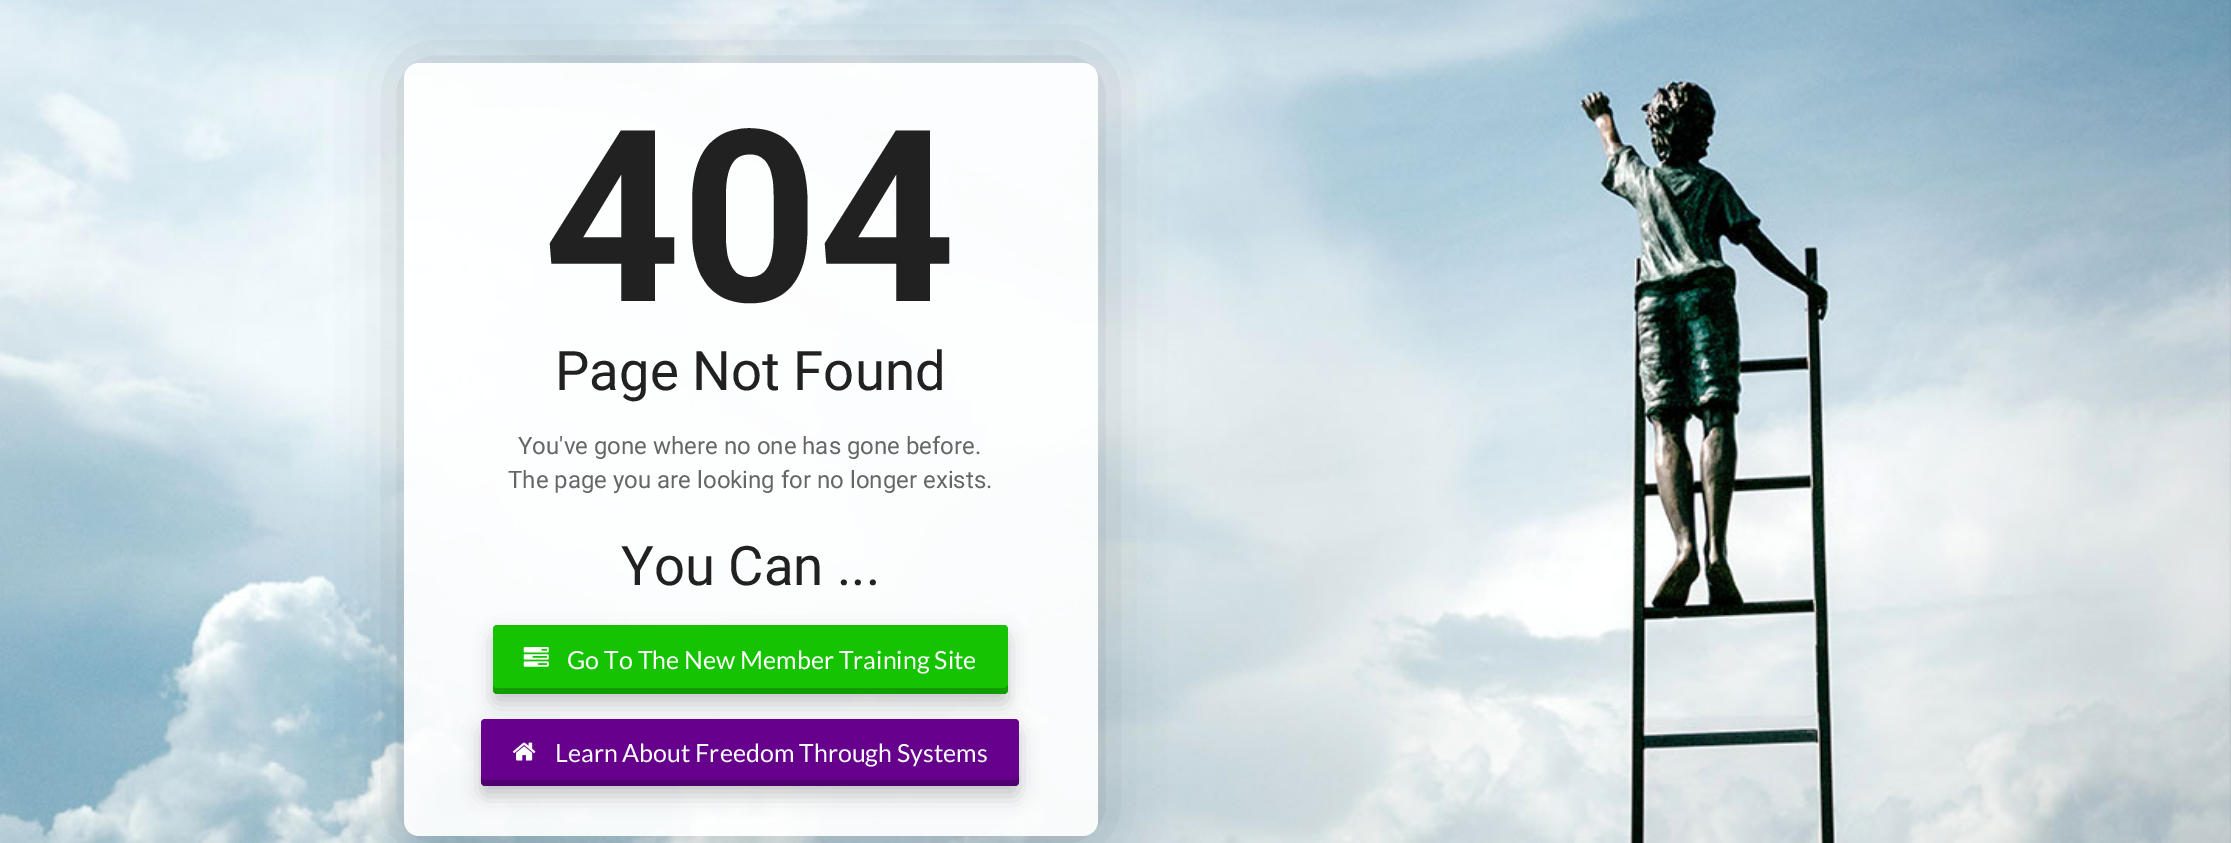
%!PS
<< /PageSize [2231 843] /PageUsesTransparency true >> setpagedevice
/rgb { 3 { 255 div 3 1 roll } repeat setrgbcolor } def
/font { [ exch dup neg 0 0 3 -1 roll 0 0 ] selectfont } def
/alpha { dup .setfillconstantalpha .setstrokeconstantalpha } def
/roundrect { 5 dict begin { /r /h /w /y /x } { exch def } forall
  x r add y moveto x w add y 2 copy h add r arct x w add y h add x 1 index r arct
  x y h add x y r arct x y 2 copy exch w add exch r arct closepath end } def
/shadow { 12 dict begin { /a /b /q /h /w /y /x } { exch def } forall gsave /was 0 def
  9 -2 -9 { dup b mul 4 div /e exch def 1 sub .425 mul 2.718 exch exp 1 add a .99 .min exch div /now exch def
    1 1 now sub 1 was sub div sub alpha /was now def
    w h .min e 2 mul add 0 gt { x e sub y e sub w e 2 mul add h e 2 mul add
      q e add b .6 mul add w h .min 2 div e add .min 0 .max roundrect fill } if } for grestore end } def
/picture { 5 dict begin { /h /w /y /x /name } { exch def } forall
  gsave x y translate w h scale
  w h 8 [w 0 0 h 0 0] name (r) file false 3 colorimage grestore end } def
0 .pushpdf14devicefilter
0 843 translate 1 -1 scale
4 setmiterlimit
255 255 255 rgb
0 0 2231 843 rectfill
(img/1.rgb) 0 0 2231 843 picture
gsave
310 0 moveto 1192 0 lineto 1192 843 lineto 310 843 lineto closepath 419 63 moveto 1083 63 lineto 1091.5 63 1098 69.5 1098 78 curveto 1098 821 lineto 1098 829.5 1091.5 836 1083 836 curveto 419 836 lineto 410.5 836 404 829.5 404 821 curveto 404 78 lineto 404 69.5 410.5 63 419 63 curveto closepath eoclip newpath
0 0 0 rgb
404 63 694 773 15 31 0.2 shadow
grestore
0.9 alpha
404 63 694 773 15 roundrect fill
1 alpha
0 0 0 rgb
493 635 515 69 4 9.5 0.2 shadow
21 195 0 rgb
493 625 515 69 4 roundrect fill
0.2 alpha
0 0 0 rgb
493 686 moveto 493 690 lineto 493 692 495 694 497 694 curveto 1004 694 lineto 1006 694 1008 692 1008 690 curveto 1008 684 lineto 1008 686 1006 688 1004 688 curveto 496 688 lineto 495 688 494 687 493 686 curveto closepath fill
1 alpha
(img/2.rgb) 523 647 26 20 picture
481 729 538 67 4 9.5 0.2 shadow
102 0 140 rgb
481 719 538 67 4 roundrect fill
0.2 alpha
0 0 0 rgb
481 776 moveto 481 779 480 786 485 786 curveto 1016 786 lineto 1020 785 1019 779 1019 776 curveto 1019 778 1017 780 1015 780 curveto 485 780 lineto 483 780 481 778 481 776 curveto closepath fill
1 alpha
(img/3.rgb) 512 742 24 19 picture
/Roboto-Bold 240 font
33 33 33 rgb
543 301 moveto (404) show
/Roboto-Regular 54.5 font
555 390 moveto (Page Not Found) show
/Roboto-Regular 24 font
102 102 102 rgb
518 454 moveto (You've gone where no one has gone before.) show
508 488 moveto (The page you are looking for no longer exists.) show
/Roboto-Regular 54.5 font
33 33 33 rgb
621 585 moveto (You Can ...) show
/Lato-Regular 25 font
255 255 255 rgb
567 669 moveto (Go To The New Member Training Site) show
555 762 moveto (Learn About Freedom Through Systems) show
.poppdf14devicefilter showpage
